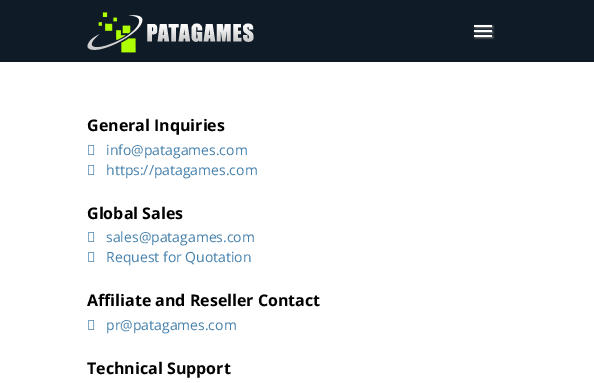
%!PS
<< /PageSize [594 383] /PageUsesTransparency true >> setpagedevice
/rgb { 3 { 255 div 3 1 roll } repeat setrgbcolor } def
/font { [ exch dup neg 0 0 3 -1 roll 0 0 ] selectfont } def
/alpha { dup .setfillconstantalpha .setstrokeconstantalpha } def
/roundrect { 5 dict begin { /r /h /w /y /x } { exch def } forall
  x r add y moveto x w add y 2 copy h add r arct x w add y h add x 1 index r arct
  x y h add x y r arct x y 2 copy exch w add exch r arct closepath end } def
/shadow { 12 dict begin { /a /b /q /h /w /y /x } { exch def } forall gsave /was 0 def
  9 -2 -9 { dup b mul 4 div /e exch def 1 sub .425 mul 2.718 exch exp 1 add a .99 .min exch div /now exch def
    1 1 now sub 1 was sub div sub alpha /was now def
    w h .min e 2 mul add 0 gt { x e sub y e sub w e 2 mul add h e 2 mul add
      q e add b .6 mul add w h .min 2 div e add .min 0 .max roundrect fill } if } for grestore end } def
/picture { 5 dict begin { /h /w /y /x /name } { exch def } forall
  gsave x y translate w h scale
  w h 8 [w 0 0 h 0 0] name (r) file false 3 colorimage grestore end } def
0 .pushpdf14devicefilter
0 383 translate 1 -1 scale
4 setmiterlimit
255 255 255 rgb
0 0 594 383 rectfill
15 27 38 rgb
0 0 594 62 rectfill
(img/1.rgb) 87 12 167 41 picture
128 128 128 rgb
475 31 18 2 0 1 1 shadow
255 255 255 rgb
474 30 18 2 rectfill
128 128 128 rgb
475 26 18 2 0 1 1 shadow
255 255 255 rgb
474 25 18 2 rectfill
128 128 128 rgb
475 36 18 2 0 1 1 shadow
255 255 255 rgb
474 35 18 2 rectfill
(img/2.rgb) 88 145 7 10 picture
(img/2.rgb) 88 165 7 10 picture
(img/2.rgb) 88 232 7 10 picture
(img/2.rgb) 88 252 7 10 picture
(img/2.rgb) 88 320 7 10 picture
/OpenSans-Bold 16 font
0 0 0 rgb
87 131 moveto (General Inquiries) show
/OpenSans-Regular 14 font
68 128 172 rgb
106 155 moveto (info@patagames.com) show
106 175 moveto (https://patagames.com) show
/OpenSans-Bold 16 font
0 0 0 rgb
87 219 moveto (Global Sales) show
/OpenSans-Regular 14 font
68 128 172 rgb
106 242 moveto (sales@patagames.com) show
106 262 moveto (Request for Quotation) show
/OpenSans-Bold 16 font
0 0 0 rgb
87 306 moveto (Affiliate and Reseller Contact) show
/OpenSans-Regular 14 font
68 128 172 rgb
106 330 moveto (pr@patagames.com) show
/OpenSans-Bold 16 font
0 0 0 rgb
87 374 moveto (Technical Support) show
.poppdf14devicefilter showpage
